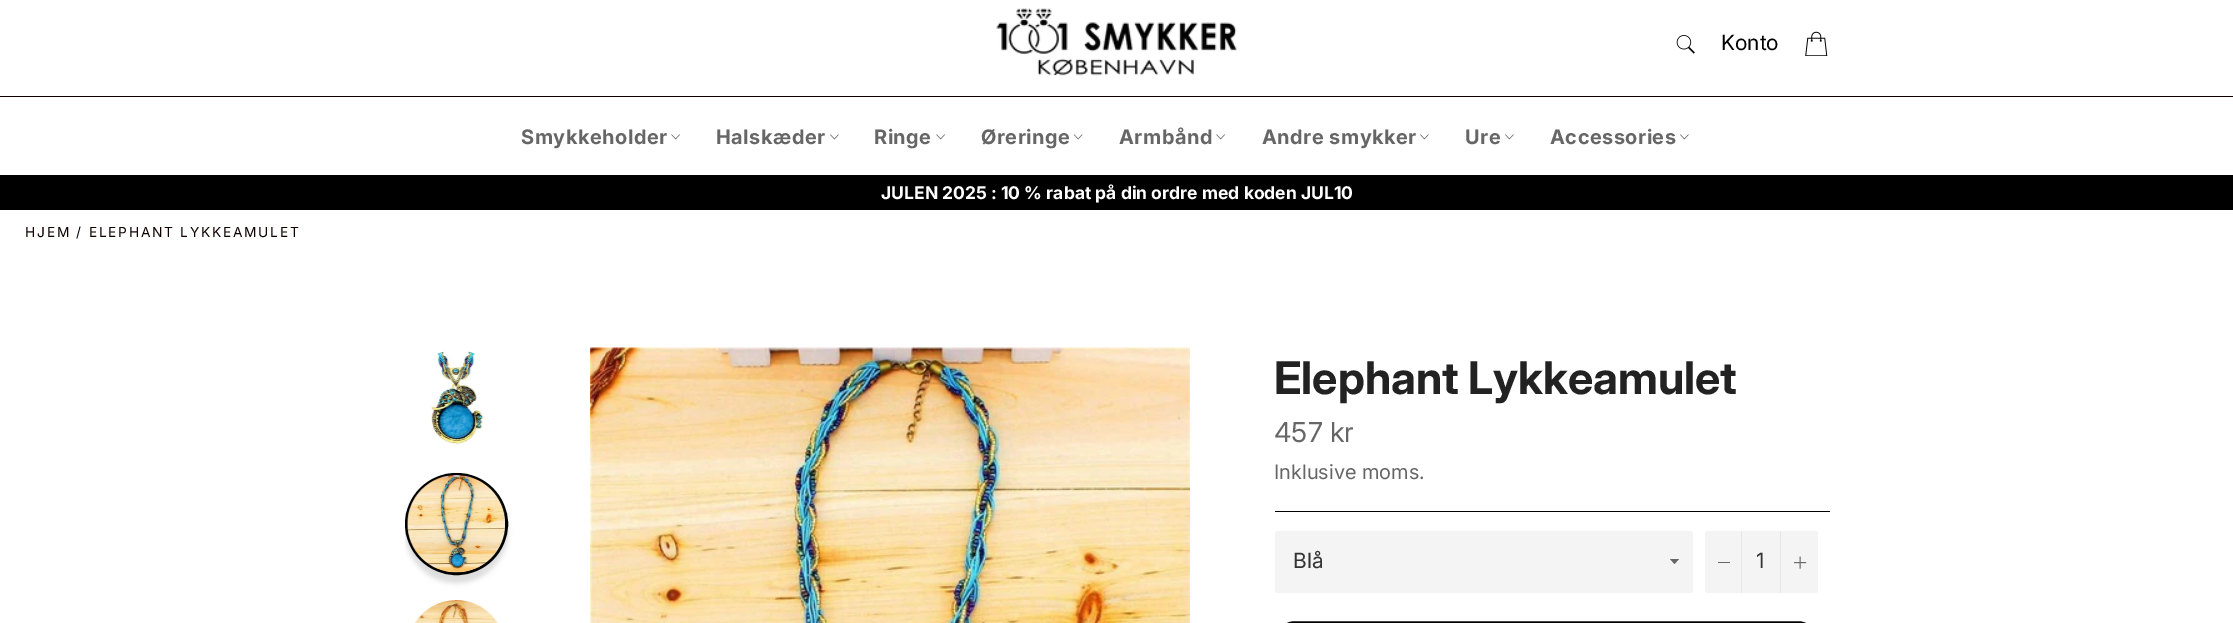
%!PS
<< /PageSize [2233 623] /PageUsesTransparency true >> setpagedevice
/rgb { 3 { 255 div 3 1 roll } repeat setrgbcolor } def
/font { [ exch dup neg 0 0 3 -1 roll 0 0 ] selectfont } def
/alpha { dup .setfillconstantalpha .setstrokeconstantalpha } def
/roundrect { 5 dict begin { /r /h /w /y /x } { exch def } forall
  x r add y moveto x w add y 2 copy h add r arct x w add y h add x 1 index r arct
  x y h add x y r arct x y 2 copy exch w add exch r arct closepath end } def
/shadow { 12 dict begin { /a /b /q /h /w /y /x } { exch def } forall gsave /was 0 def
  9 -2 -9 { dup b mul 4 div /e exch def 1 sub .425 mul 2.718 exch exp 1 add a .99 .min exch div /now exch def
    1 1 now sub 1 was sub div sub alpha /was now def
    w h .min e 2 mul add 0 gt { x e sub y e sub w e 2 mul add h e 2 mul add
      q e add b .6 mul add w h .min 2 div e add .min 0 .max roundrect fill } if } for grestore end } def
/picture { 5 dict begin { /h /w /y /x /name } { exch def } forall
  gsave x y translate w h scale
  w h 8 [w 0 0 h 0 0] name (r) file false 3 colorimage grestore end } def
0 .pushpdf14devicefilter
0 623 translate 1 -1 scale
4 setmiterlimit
255 255 255 rgb
0 0 2233 623 rectfill
(img/1.rgb) 996 8 241 68 picture
(img/2.rgb) 1676 35 19 19 picture
(img/3.rgb) 1805 31 23 25 picture
14 0 0 rgb
0 96 2233 1 rectfill
(img/4.rgb) 671 134 9 6 picture
(img/5.rgb) 830 134 9 6 picture
(img/4.rgb) 936 134 9 6 picture
(img/6.rgb) 1073 134 10 6 picture
(img/4.rgb) 1216 134 9 6 picture
(img/5.rgb) 1420 134 9 6 picture
(img/5.rgb) 1505 134 9 6 picture
(img/5.rgb) 1680 134 9 6 picture
0 0 0 rgb
0 175 2233 35 rectfill
(img/7.rgb) 431 351 54 94 picture
gsave
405 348 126 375 rectclip
199 199 199 rgb
405 480 103 103 51.5 2.5 0.6 shadow
grestore
3 setlinewidth
406.5 474.5 100 99 49.5 roundrect stroke
(img/8.rgb) 407 475 98 98 picture
(img/9.rgb) 414 600 84 23 picture
(img/10.rgb) 590 347 600 276 picture
1275 511 555 1 rectfill
244 244 244 rgb
1275 531 418 62 2.5 roundrect fill
102 102 102 rgb
1670 559 moveto 1674.5 564 lineto 1679 559 lineto closepath fill
244 244 244 rgb
1705 531 113 62 2.5 roundrect fill
[
  [1741 531 1 62 231 231 231]
  [1718 562 12 1 102 102 102]
  [1780 531 1 62 231 231 231]
] { aload pop rgb rectfill } forall
(img/11.rgb) 1794 556 13 13 picture
0 0 0 rgb
1276.5 619.5 540 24 17.5 roundrect gsave fill grestore
255 255 255 rgb
stroke
/Inter-Regular 21 font
0 0 0 rgb
1721 50 moveto (Konto) show
/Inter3-Bold 20 font
102 102 102 rgb
521 144 moveto 0.5 0 (Smykkeholder) ashow
716 144 moveto 0.5 0 (Halskæder) ashow
874 144 moveto 0.5 0 (Ringe) ashow
981 144 moveto 0.5 0 (Øreringe) ashow
1119 144 moveto 0.5 0 (Armbånd) ashow
1262 144 moveto 0.5 0 (Andre smykker) ashow
1465 144 moveto 0.5 0 (Ure) ashow
1550 144 moveto 0.5 0 (Accessories) ashow
/Inter-Bold 17.5 font
255 255 255 rgb
881 199 moveto (JULEN 2025 : 10 % rabat på din ordre med koden JUL10) show
/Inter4-Regular 13.75 font
14 0 0 rgb
25 237 moveto 1.75 0 (HJEM / ELEPHANT LYKKEAMULET) ashow
/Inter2-Bold 45 font
34 34 34 rgb
1274 394 moveto (Elephant Lykkeamulet) show
/Inter2-Regular 27.5 font
102 102 102 rgb
1274 442 moveto (457 kr) show
/Inter3-Regular 20 font
1274 479 moveto (Inklusive moms.) show
/Inter-Regular 21 font
51 51 51 rgb
1293 568 moveto (Blå) show
1756 568 moveto (1) show
.poppdf14devicefilter showpage
